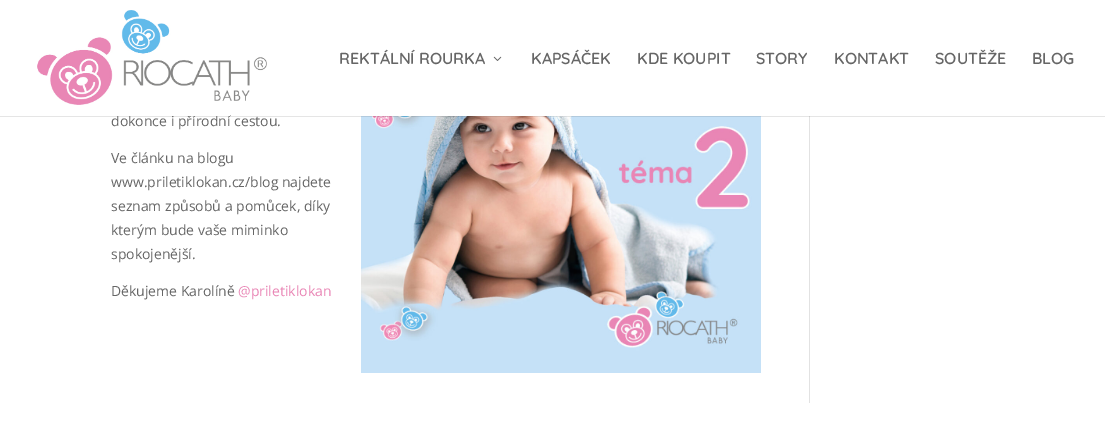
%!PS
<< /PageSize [1105 423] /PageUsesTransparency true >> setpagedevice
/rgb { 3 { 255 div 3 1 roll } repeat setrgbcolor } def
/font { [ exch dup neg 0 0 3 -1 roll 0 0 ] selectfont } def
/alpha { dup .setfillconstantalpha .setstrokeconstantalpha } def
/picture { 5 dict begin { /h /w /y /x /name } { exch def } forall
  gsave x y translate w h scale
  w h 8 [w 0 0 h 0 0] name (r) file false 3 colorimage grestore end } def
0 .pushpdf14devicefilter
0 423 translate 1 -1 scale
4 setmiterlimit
255 255 255 rgb
0 0 1105 423 rectfill
(img/3.rgb) 361 116 400 257 picture
226 226 226 rgb
809 116 1 287 rectfill
0.1 alpha
0 0 0 rgb
0 116 1105 1 rectfill
1 alpha
(img/1.rgb) 37 10 230 95 picture
(img/2.rgb) 493 56 9 5 picture
/Quicksand-SemiBold 16 font
102 102 102 rgb
[
  [(REKTÁLNÍ ROURKA) 339 64]
  [(KAPSÁČEK) 531 64]
  [(KDE KOUPIT) 637 64]
  [(STORY) 756 64]
  [(KONTAKT) 834 64]
  [(SOUTĚŽE) 935 64]
  [(BLOG) 1032 64]
] { aload pop moveto show } forall
/OpenSans-Regular 14 font
111 126 moveto (dokonce i přírodní cestou.) show
255 255 255 rgb
116 115 114 1 rectfill
102 102 102 rgb
[
  [(Ve článku na blogu) 111 163]
  [(www.priletiklokan.cz/blog najdete) 111 187]
  [(seznam způsobů a pomůcek, díky) 111 211]
  [(kterým bude vaše miminko) 111 235]
  [(spokojenější.) 111 259]
  [(Děkujeme Karolíně) 111 296]
] { aload pop moveto show } forall
233 134 181 rgb
238 296 moveto (@priletiklokan) show
.poppdf14devicefilter showpage
